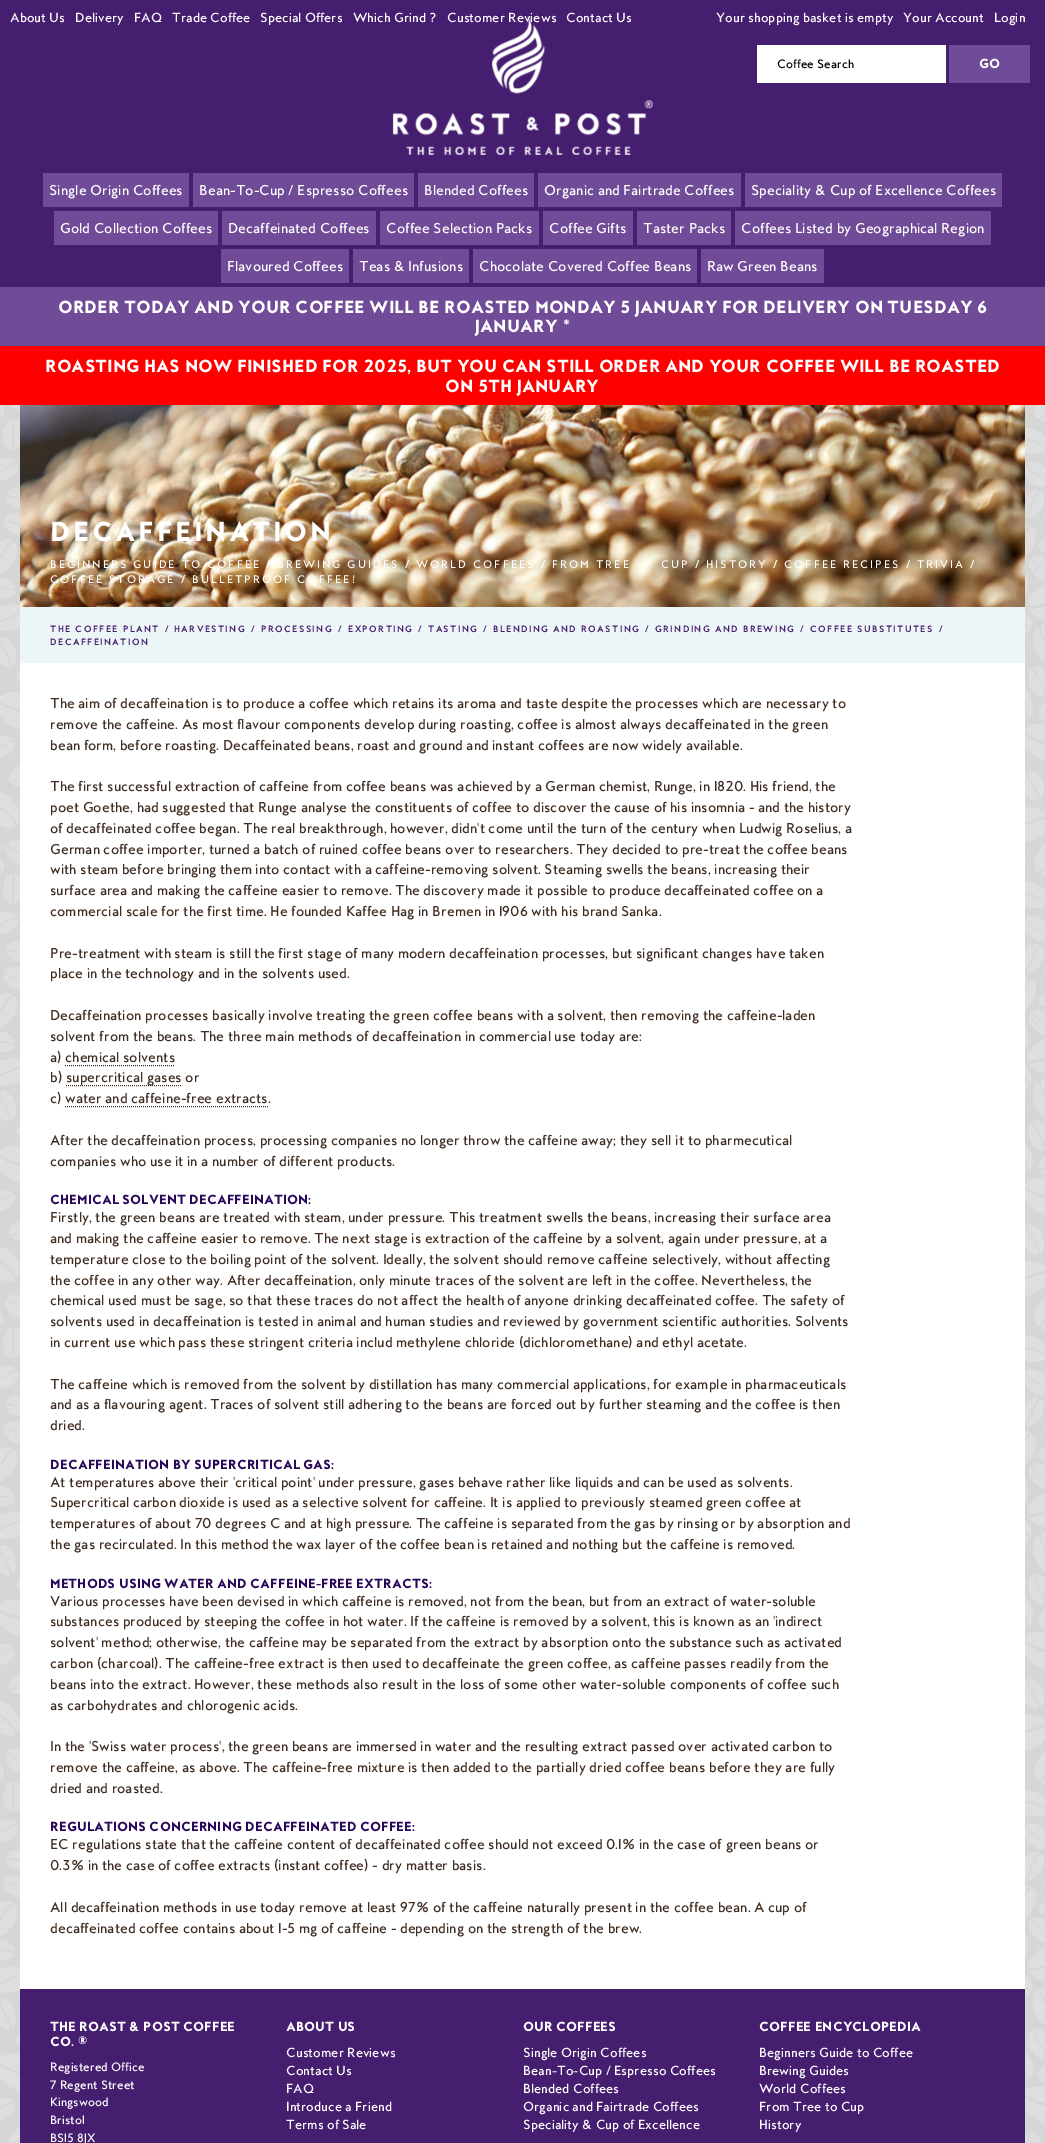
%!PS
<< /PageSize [1045 2143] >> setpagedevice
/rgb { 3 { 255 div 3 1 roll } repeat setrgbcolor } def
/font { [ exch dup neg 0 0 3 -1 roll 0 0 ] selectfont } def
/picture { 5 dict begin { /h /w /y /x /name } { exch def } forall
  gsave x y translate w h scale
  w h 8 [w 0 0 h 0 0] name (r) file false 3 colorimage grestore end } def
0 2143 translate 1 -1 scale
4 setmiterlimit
255 255 255 rgb
0 0 1045 2143 rectfill
(img/1.rgb) 0 405 1045 1738 picture
70 30 111 rgb
0 0 1045 287 rectfill
(img/2.rgb) 392 16 261 139 picture
[
  [757 45 189 38 255 255 255]
  [949 45 81 38 112 75 151]
  [43 173 146 34 112 75 151]
  [193 173 221 34 112 75 151]
  [418 173 116 34 112 75 151]
  [538 173 203 34 112 75 151]
  [745 173 257 34 112 75 151]
  [54 211 164 34 112 75 151]
  [222 211 154 34 112 75 151]
  [380 211 159 34 112 75 151]
  [543 211 90 34 112 75 151]
  [637 211 94 34 112 75 151]
  [735 211 256 34 112 75 151]
  [221 249 128 34 112 75 151]
  [353 249 116 34 112 75 151]
  [473 249 224 34 112 75 151]
  [701 249 123 34 112 75 151]
  [0 287 1045 59 112 75 151]
  [0 346 1045 59 255 0 0]
  [20 663 1005 1326 255 255 255]
] { aload pop rgb rectfill } forall
(img/3.rgb) 20 405 1005 202 picture
236 246 246 rgb
20 607 1005 56 rectfill
65 46 34 rgb
[1 1] 0 setdash
65 1065.5 moveto 175 1065.5 lineto stroke
66 1085.5 moveto 182 1085.5 lineto stroke
65 1106.5 moveto 268 1106.5 lineto stroke
70 30 111 rgb
20 1989 1005 154 rectfill
/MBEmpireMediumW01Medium-Medium 12 font
255 255 255 rgb
[
  [(About Us) 10 22]
  [(Delivery) 75 22]
  [(FAQ) 134 22]
  [(Trade Coffee) 172 22]
  [(Special Offers) 260 22]
  [(Which Grind ?) 353 22]
  [(Customer Reviews) 447 22]
  [(Contact Us) 566 22]
  [(Your shopping basket is empty) 716 22]
  [(Your Account) 903 22]
  [(Login) 994 22]
] { aload pop moveto show } forall
/MBEmpireMediumW01Medium-Medium 11 font
0 0 0 rgb
777 68 moveto (Coffee Search) show
/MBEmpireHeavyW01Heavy-Black 12 font
255 255 255 rgb
979 68 moveto (GO) show
/MBEmpireMediumW01Medium-Medium 13 font
[
  [(Single Origin Coffees) 49 195]
  [(Bean-To-Cup / Espresso Coffees) 199 195]
  [(Blended Coffees) 424 195]
  [(Organic and Fairtrade Coffees) 544 195]
  [(Speciality & Cup of Excellence Coffees) 751 195]
  [(Gold Collection Coffees) 60 233]
  [(Decaffeinated Coffees) 228 233]
  [(Coffee Selection Packs) 386 233]
  [(Coffee Gifts) 549 233]
  [(Taster Packs) 643 233]
  [(Coffees Listed by Geographical Region) 741 233]
  [(Flavoured Coffees) 227 271]
  [(Teas & Infusions) 359 271]
  [(Chocolate Covered Coffee Beans) 479 271]
  [(Raw Green Beans) 707 271]
] { aload pop moveto show } forall
/MBEmpireHeavyW01Heavy-Black 16 font
58 313 moveto (ORDER TODAY AND YOUR COFFEE WILL BE ROASTED MONDAY 5 JANUARY FOR DELIVERY ON TUESDAY 6) show
475 332 moveto (JANUARY) show
/MBEmpireMediumW01Medium-Medium 16 font
563 332 moveto (*) show
/MBEmpireHeavyW01Heavy-Black 16 font
45 372 moveto (ROASTING HAS NOW FINISHED FOR 2025, BUT YOU CAN STILL ORDER AND YOUR COFFEE WILL BE ROASTED) show
445 392 moveto (ON 5TH JANUARY) show
/MBEmpireHeavyW01Heavy-Black 25 font
50 541 moveto 2.5 0 (DECAFFEINATION) ashow
/MBEmpireMediumW01Medium-Medium 10 font
50 568 moveto 2 0 (BEGINNERS GUIDE TO COFFEE) ashow
/MBEmpireMediumW01Medium-Bold 10 font
266 568 moveto 2 0 (/) ashow
/MBEmpireMediumW01Medium-Medium 10 font
277 568 moveto 2 0 (BREWING GUIDES) ashow
/MBEmpireMediumW01Medium-Bold 10 font
405 568 moveto 2 0 (/) ashow
/MBEmpireMediumW01Medium-Medium 10 font
416 568 moveto 2 0 (WORLD COFFEES) ashow
/MBEmpireMediumW01Medium-Bold 10 font
541 568 moveto 2 0 (/) ashow
/MBEmpireMediumW01Medium-Medium 10 font
552 568 moveto 2 0 (FROM TREE) ashow
661 568 moveto 2 0 (CUP) ashow
/MBEmpireMediumW01Medium-Bold 10 font
695 568 moveto 2 0 (/) ashow
/MBEmpireMediumW01Medium-Medium 10 font
706 568 moveto 2 0 (HISTORY) ashow
/MBEmpireMediumW01Medium-Bold 10 font
773 568 moveto 2 0 (/) ashow
/MBEmpireMediumW01Medium-Medium 10 font
784 568 moveto 2 0 (COFFEE RECIPES) ashow
/MBEmpireMediumW01Medium-Bold 10 font
906 568 moveto 2 0 (/) ashow
/MBEmpireMediumW01Medium-Medium 10 font
917 568 moveto 2 0 (TRIVIA) ashow
/MBEmpireMediumW01Medium-Bold 10 font
970 568 moveto 2 0 (/) ashow
/MBEmpireMediumW01Medium-Medium 10 font
50 583 moveto 2 0 (COFFEE STORAGE) ashow
/MBEmpireMediumW01Medium-Bold 10 font
181 583 moveto 2 0 (/) ashow
/MBEmpireMediumW01Medium-Medium 10 font
192 583 moveto 2 0 (BULLETPROOF COFFEE!) ashow
/MBEmpireMediumW01Medium-Bold 8 font
70 30 111 rgb
50 632 moveto 1.6 0 (THE COFFEE PLANT) ashow
165 632 moveto 1.6 0 (/) ashow
174 632 moveto 1.6 0 (HARVESTING) ashow
251 632 moveto 1.6 0 (/) ashow
261 632 moveto 1.6 0 (PROCESSING) ashow
338 632 moveto 1.6 0 (/) ashow
348 632 moveto 1.6 0 (EXPORTING) ashow
418 632 moveto 1.6 0 (/) ashow
428 632 moveto 1.6 0 (TASTING) ashow
483 632 moveto 1.6 0 (/) ashow
493 632 moveto 1.6 0 (BLENDING AND ROASTING) ashow
645 632 moveto 1.6 0 (/) ashow
655 632 moveto 1.6 0 (GRINDING AND BREWING) ashow
800 632 moveto 1.6 0 (/) ashow
810 632 moveto 1.6 0 (COFFEE SUBSTITUTES) ashow
939 632 moveto 1.6 0 (/) ashow
50 645 moveto 1.6 0 (DECAFFEINATION) ashow
/MBEmpireMediumW01Medium-Medium 13 font
65 46 34 rgb
[
  [(The aim of decaffeination is to produce a coffee which retains its aroma and taste despite the processes which are necessary to) 50 708]
  [(remove the caffeine. As most flavour components develop during roasting, coffee is almost always decaffeinated in the green) 50 729]
  [(bean form, before roasting. Decaffeinated beans, roast and ground and instant coffees are now widely available.) 50 750]
  [(The first successful extraction of caffeine from coffee beans was achieved by a German chemist, Runge, in 1820. His friend, the) 50 791]
  [(poet Goethe, had suggested that Runge analyse the constituents of coffee to discover the cause of his insomnia - and the history) 50 812]
  [(of decaffeinated coffee began. The real breakthrough, however, didn't come until the turn of the century when Ludwig Roselius, a) 50 833]
  [(German coffee importer, turned a batch of ruined coffee beans over to researchers. They decided to pre-treat the coffee beans) 50 854]
  [(with steam before bringing them into contact with a caffeine-removing solvent. Steaming swells the beans, increasing their) 50 874]
  [(surface area and making the caffeine easier to remove. The discovery made it possible to produce decaffeinated coffee on a) 50 895]
  [(commercial scale for the first time. He founded Kaffee Hag in Bremen in 1906 with his brand Sanka.) 50 916]
  [(Pre-treatment with steam is still the first stage of many modern decaffeination processes, but significant changes have taken) 50 958]
  [(place in the technology and in the solvents used.) 50 978]
  [(Decaffeination processes basically involve treating the green coffee beans with a solvent, then removing the caffeine-laden) 50 1020]
  [(solvent from the beans. The three main methods of decaffeination in commercial use today are:) 50 1041]
  [(a\) chemical solvents) 50 1062]
  [(b\)) 50 1082]
  [(supercritical gases or) 66 1082]
  [(c\) water and caffeine-free extracts.) 50 1103]
  [(After the decaffeination process, processing companies no longer throw the caffeine away; they sell it to pharmecutical) 50 1145]
  [(companies who use it in a number of different products.) 50 1166]
] { aload pop moveto show } forall
/MBEmpireHeavyW01Heavy-Black 12 font
41 8 90 rgb
50 1204 moveto (CHEMICAL SOLVENT DECAFFEINATION:) show
/MBEmpireMediumW01Medium-Medium 13 font
65 46 34 rgb
[
  [(Firstly, the green beans are treated with steam, under pressure. This treatment swells the beans, increasing their surface area) 50 1222]
  [(and making the caffeine easier to remove. The next stage is extraction of the caffeine by a solvent, again under pressure, at a) 50 1243]
  [(temperature close to the boiling point of the solvent. Ideally, the solvent should remove caffeine selectively, without affecting) 50 1264]
  [(the coffee in any other way. After decaffeination, only minute traces of the solvent are left in the coffee. Nevertheless, the) 50 1285]
  [(chemical used must be sage, so that these traces do not affect the health of anyone drinking decaffeinated coffee. The safety of) 50 1305]
  [(solvents used in decaffeination is tested in animal and human studies and reviewed by government scientific authorities. Solvents) 50 1326]
  [(in current use which pass these stringent criteria includ methylene chloride \(dichloromethane\) and ethyl acetate.) 50 1347]
  [(The caffeine which is removed from the solvent by distillation has many commercial applications, for example in pharmaceuticals) 50 1389]
  [(and as a flavouring agent. Traces of solvent still adhering to the beans are forced out by further steaming and the coffee is then) 50 1409]
  [(dried.) 50 1430]
] { aload pop moveto show } forall
/MBEmpireHeavyW01Heavy-Black 12 font
41 8 90 rgb
50 1469 moveto (DECAFFEINATION BY SUPERCRITICAL GAS:) show
/MBEmpireMediumW01Medium-Medium 13 font
65 46 34 rgb
[
  [(At temperatures above their 'critical point' under pressure, gases behave rather like liquids and can be used as solvents.) 50 1487]
  [(Supercritical carbon dioxide is used as a selective solvent for caffeine. It is applied to previously steamed green coffee at) 50 1507]
  [(temperatures of about 70 degrees C and at high pressure. The caffeine is separated from the gas by rinsing or by absorption and) 50 1528]
  [(the gas recirculated. In this method the wax layer of the coffee bean is retained and nothing but the caffeine is removed.) 50 1549]
] { aload pop moveto show } forall
/MBEmpireHeavyW01Heavy-Black 12 font
41 8 90 rgb
50 1588 moveto (METHODS USING WATER AND CAFFEINE-FREE EXTRACTS:) show
/MBEmpireMediumW01Medium-Medium 13 font
65 46 34 rgb
[
  [(Various processes have been devised in which caffeine is removed, not from the bean, but from an extract of water-soluble) 50 1606]
  [(substances produced by steeping the coffee in hot water. If the caffeine is removed by a solvent, this is known as an 'indirect) 50 1626]
  [(solvent' method; otherwise, the caffeine may be separated from the extract by absorption onto the substance such as activated) 50 1647]
  [(carbon \(charcoal\). The caffeine-free extract is then used to decaffeinate the green coffee, as caffeine passes readily from the) 50 1668]
  [(beans into the extract. However, these methods also result in the loss of some other water-soluble components of coffee such) 50 1689]
  [(as carbohydrates and chlorogenic acids.) 50 1710]
  [(In the 'Swiss water process', the green beans are immersed in water and the resulting extract passed over activated carbon to) 50 1751]
  [(remove the caffeine, as above. The caffeine-free mixture is then added to the partially dried coffee beans before they are fully) 50 1772]
  [(dried and roasted.) 50 1793]
] { aload pop moveto show } forall
/MBEmpireHeavyW01Heavy-Black 12 font
41 8 90 rgb
50 1831 moveto (REGULATIONS CONCERNING DECAFFEINATED COFFEE:) show
/MBEmpireMediumW01Medium-Medium 13 font
65 46 34 rgb
[
  [(EC regulations state that the caffeine content of decaffeinated coffee should not exceed 0.1% in the case of green beans or) 50 1849]
  [(0.3% in the case of coffee extracts \(instant coffee\) - dry matter basis.) 50 1870]
  [(All decaffeination methods in use today remove at least 97% of the caffeine naturally present in the coffee bean. A cup of) 50 1912]
  [(decaffeinated coffee contains about 1-5 mg of caffeine - depending on the strength of the brew.) 50 1933]
] { aload pop moveto show } forall
/MBEmpireHeavyW01Heavy-Black 12 font
255 255 255 rgb
50 2031 moveto (THE ROAST & POST COFFEE) show
50 2046 moveto (CO.) show
/MBEmpireHeavyW01Heavy-Black 10 font
78 2044 moveto (®) show
/MBEmpireMediumW01Medium-Medium 11 font
[
  [(Registered Office) 50 2071]
  [(7 Regent Street) 50 2089]
  [(Kingswood) 50 2106]
  [(Bristol) 50 2124]
  [(BS15 8JX) 50 2142]
] { aload pop moveto show } forall
/MBEmpireHeavyW01Heavy-Black 12 font
286 2031 moveto (ABOUT US) show
/MBEmpireMediumW01Medium-Medium 12 font
[
  [(Customer Reviews) 286 2057]
  [(Contact Us) 286 2075]
  [(FAQ) 286 2093]
  [(Introduce a Friend) 286 2111]
  [(Terms of Sale) 286 2129]
] { aload pop moveto show } forall
/MBEmpireHeavyW01Heavy-Black 12 font
523 2031 moveto (OUR COFFEES) show
/MBEmpireMediumW01Medium-Medium 12 font
[
  [(Single Origin Coffees) 523 2057]
  [(Bean-To-Cup / Espresso Coffees) 523 2075]
  [(Blended Coffees) 523 2093]
  [(Organic and Fairtrade Coffees) 523 2111]
  [(Speciality & Cup of Excellence) 523 2129]
] { aload pop moveto show } forall
/MBEmpireHeavyW01Heavy-Black 12 font
759 2031 moveto (COFFEE ENCYCLOPEDIA) show
/MBEmpireMediumW01Medium-Medium 12 font
[
  [(Beginners Guide to Coffee) 759 2057]
  [(Brewing Guides) 759 2075]
  [(World Coffees) 759 2093]
  [(From Tree to Cup) 759 2111]
  [(History) 759 2129]
] { aload pop moveto show } forall
showpage
